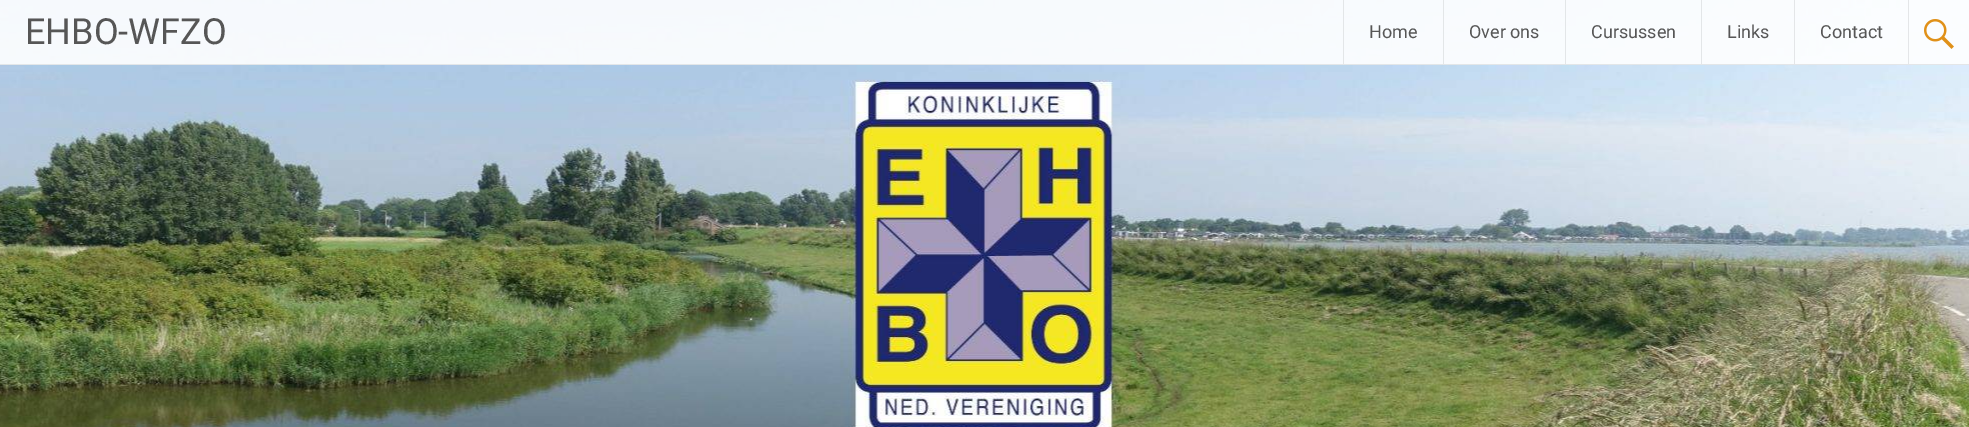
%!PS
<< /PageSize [1969 427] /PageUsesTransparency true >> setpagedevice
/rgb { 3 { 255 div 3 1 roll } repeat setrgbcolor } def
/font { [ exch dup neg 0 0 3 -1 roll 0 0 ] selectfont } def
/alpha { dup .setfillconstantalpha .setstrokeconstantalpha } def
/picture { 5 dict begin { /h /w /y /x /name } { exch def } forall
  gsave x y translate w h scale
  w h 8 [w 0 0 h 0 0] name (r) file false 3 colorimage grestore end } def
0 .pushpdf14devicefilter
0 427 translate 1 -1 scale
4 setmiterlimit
255 255 255 rgb
0 0 1969 427 rectfill
(img/1.rgb) 0 0 1969 427 picture
0.9 alpha
[
  [0 0 1969 65 255 255 255]
  [0 64 1969 1 225 228 230]
] { aload pop rgb rectfill } forall
1 alpha
[
  [1343 0 1 64 227 230 232]
  [1443 0 1 64 227 230 232]
  [1565 0 1 64 227 230 232]
  [1701 0 1 64 227 230 232]
  [1794 0 1 64 228 230 232]
  [1908 0 1 64 228 230 232]
] { aload pop rgb rectfill } forall
(img/2.rgb) 1924 19 30 30 picture
/Roboto-Regular 36 font
86 86 86 rgb
25 44 moveto (EHBO-WFZO) show
/Roboto-Regular 18 font
[
  [(Home) 1369 38]
  [(Over ons) 1469 38]
  [(Cursussen) 1591 38]
  [(Links) 1727 38]
  [(Contact) 1820 38]
] { aload pop moveto show } forall
.poppdf14devicefilter showpage
